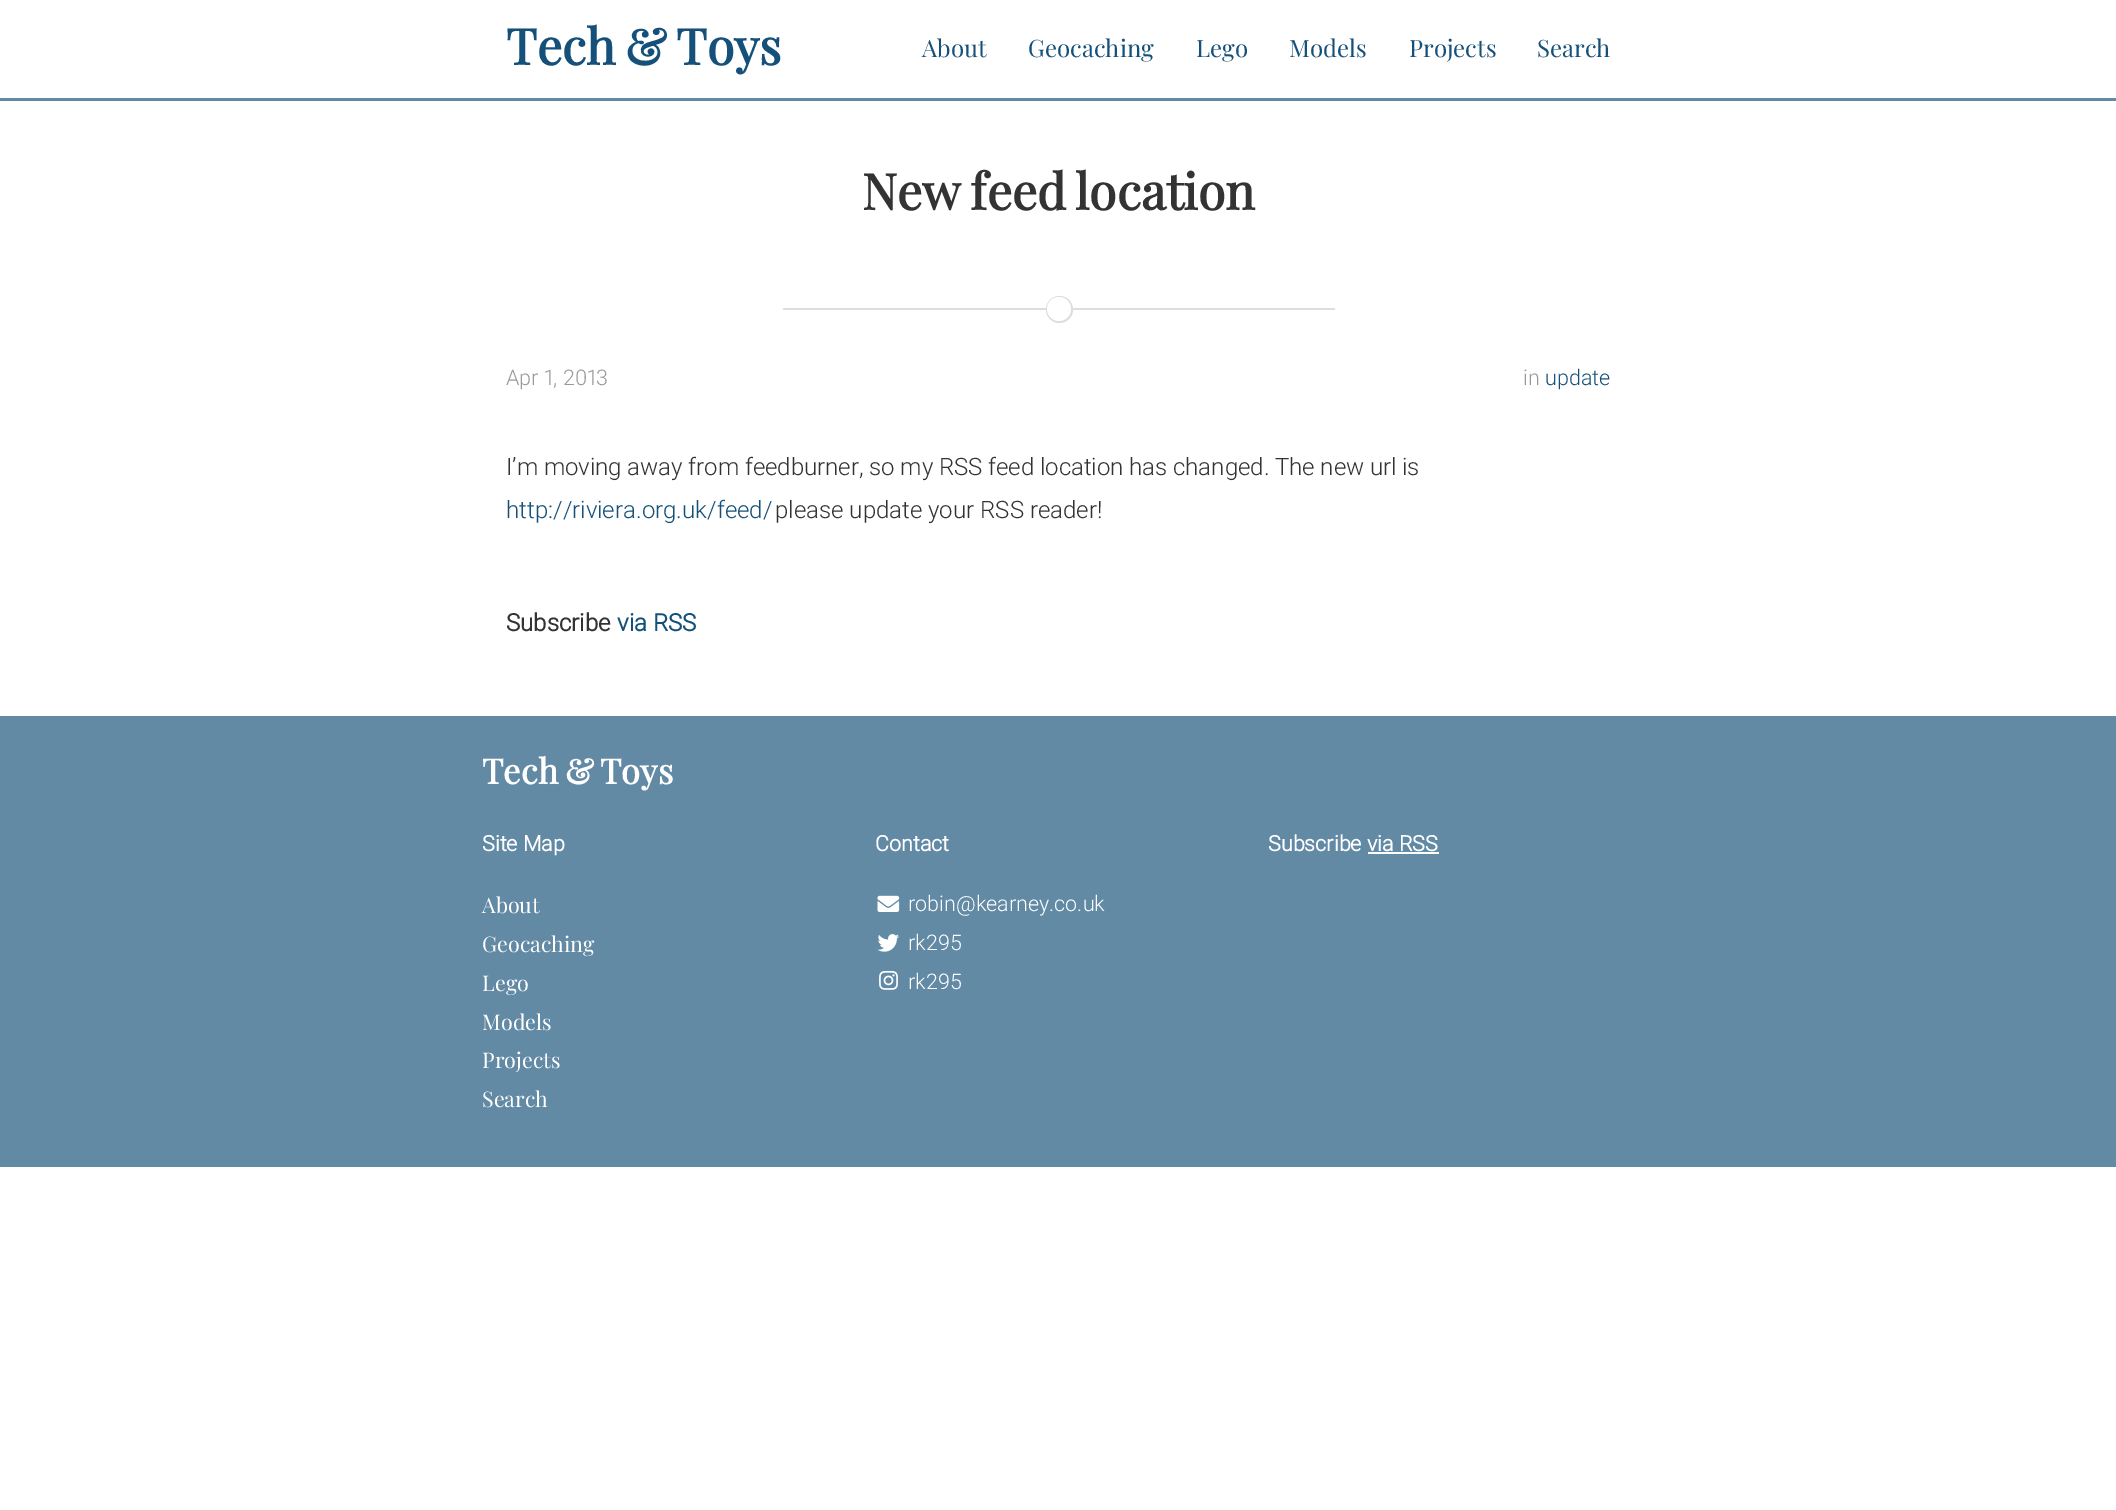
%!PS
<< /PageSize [2116 1510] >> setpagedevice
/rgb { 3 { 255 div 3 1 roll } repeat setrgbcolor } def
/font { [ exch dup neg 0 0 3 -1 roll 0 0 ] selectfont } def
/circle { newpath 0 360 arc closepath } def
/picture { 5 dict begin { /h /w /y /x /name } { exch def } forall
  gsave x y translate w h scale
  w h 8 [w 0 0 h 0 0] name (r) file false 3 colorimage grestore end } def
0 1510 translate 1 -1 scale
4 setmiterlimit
255 255 255 rgb
0 0 2116 1510 rectfill
98 138 165 rgb
0 98 moveto 0 101 lineto 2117 101 lineto 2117 3 lineto 2116 3 lineto 2116 98 lineto closepath fill
221 221 221 rgb
783 308 552 2 rectfill
1059.5 309.5 13.5 circle fill
255 255 255 rgb
1059 309 12 circle fill
98 138 165 rgb
0 716 2116 451 rectfill
(img/1.rgb) 877 895 23 17 picture
(img/2.rgb) 877 934 22 18 picture
(img/3.rgb) 879 970 19 20 picture
255 255 255 rgb
1368 852 71 2 rectfill
/PlayfairDisplay-Bold 49.75 font
20 80 121 rgb
506 65 moveto -3 0 32 (Tech & Toys) widthshow
/PlayfairDisplay-Regular 24 font
[
  [(About) 922 57]
  [(Geocaching) 1028 57]
  [(Lego) 1196 57]
  [(Models) 1289 57]
  [(Projects) 1409 57]
  [(Search) 1537 57]
] { aload pop moveto show } forall
/PlayfairDisplay-Bold 49.75 font
51 51 51 rgb
862 210 moveto -3 0 32 (New feed location) widthshow
/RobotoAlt-Light 21.5 font
153 153 153 rgb
506 385 moveto (Apr 1, 2013) show
/Roboto-Light 21.5 font
1523 385 moveto (in) show
20 80 121 rgb
1545 385 moveto (update) show
/Roboto-Light 24 font
51 51 51 rgb
506 475 moveto -0.25 0 32 (I’m moving away from feedburner, so my RSS feed location has changed. The new url is) widthshow
20 80 121 rgb
506 518 moveto (http://riviera.org.uk/feed/) show
51 51 51 rgb
775 518 moveto (please update your RSS reader!) show
/Roboto-Bold 24 font
506 631 moveto (Subscribe) show
20 80 121 rgb
617 631 moveto (via RSS) show
/PlayfairDisplay-Bold 34.5 font
255 255 255 rgb
482 784 moveto -2 0 32 (Tech & Toys) widthshow
/Roboto-Bold 21.5 font
482 851 moveto (Site Map) show
/PlayfairDisplay-Regular 21.5 font
[
  [(About) 482 913]
  [(Geocaching) 482 952]
  [(Lego) 482 991]
  [(Models) 482 1030]
  [(Projects) 482 1068]
  [(Search) 482 1107]
] { aload pop moveto show } forall
/Roboto-Bold 21.5 font
875 851 moveto (Contact) show
/Roboto-Light 21.5 font
[
  [(robin@kearney.co.uk) 908 911]
  [(rk295) 908 950]
  [(rk295) 908 989]
] { aload pop moveto show } forall
/Roboto-Bold 21.5 font
1268 851 moveto (Subscribe via RSS) show
showpage
